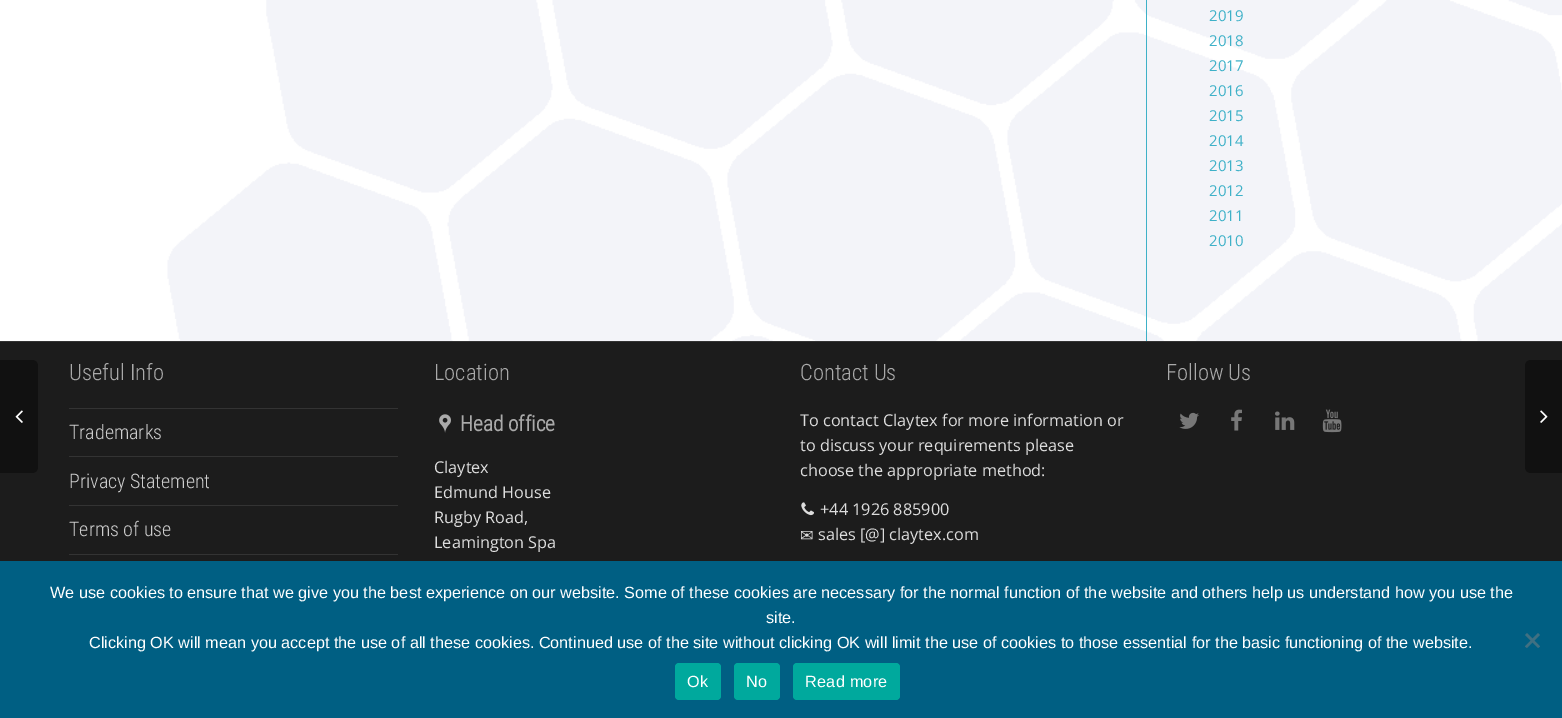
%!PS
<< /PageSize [1562 718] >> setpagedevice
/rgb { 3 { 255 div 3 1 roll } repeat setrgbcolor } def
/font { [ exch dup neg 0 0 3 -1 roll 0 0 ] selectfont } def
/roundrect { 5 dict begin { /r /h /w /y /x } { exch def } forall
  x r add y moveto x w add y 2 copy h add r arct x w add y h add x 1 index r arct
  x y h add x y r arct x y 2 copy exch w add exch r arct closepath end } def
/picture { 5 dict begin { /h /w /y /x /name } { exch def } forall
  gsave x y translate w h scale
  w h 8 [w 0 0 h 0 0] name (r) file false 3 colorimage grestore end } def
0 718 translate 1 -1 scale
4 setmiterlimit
255 255 255 rgb
0 0 1562 718 rectfill
(img/1.rgb) 167 0 1395 341 picture
62 177 200 rgb
1146 0 1 341 rectfill
28 28 28 rgb
0 342 1562 219 rectfill
17 17 17 rgb
-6 360 moveto 32 360 lineto 35.5 360 38 362.5 38 366 curveto 38 467 lineto 38 470.5 35.5 473 32 473 curveto -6 473 lineto closepath fill
(img/2.rgb) 15 410 8 13 picture
1531 360 moveto 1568 360 lineto 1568 473 lineto 1531 473 lineto 1527.5 473 1525 470.5 1525 467 curveto 1525 366 lineto 1525 362.5 1527.5 360 1531 360 curveto closepath fill
(img/3.rgb) 1540 410 8 13 picture
[
  [0 341 1562 1 51 51 51]
  [69 408 329 1 51 51 51]
  [69 456 329 1 51 51 51]
  [69 505 329 1 51 51 51]
  [69 554 329 1 51 51 51]
] { aload pop rgb rectfill } forall
(img/4.rgb) 439 414 12 19 picture
(img/5.rgb) 801 502 13 14 picture
(img/6.rgb) 1179 412 20 17 picture
(img/7.rgb) 1231 409 11 22 picture
(img/8.rgb) 1275 411 20 19 picture
(img/9.rgb) 1322 409 20 24 picture
0 95 131 rgb
0 561 1562 157 rectfill
64 112 130 rgb
1538 633 moveto 1540 635 lineto 1527 648 lineto 1525 646.5 lineto closepath fill
1525 635 moveto 1527 633 lineto 1540 646.5 lineto 1538 648 lineto closepath fill
0 169 157 rgb
675 663 46 37 4 roundrect fill
734 663 46 37 4 roundrect fill
793 663 107 37 4 roundrect fill
/OpenSans-Regular 15 font
62 177 200 rgb
[
  [(2019) 1209 21]
  [(2018) 1209 46]
  [(2017) 1209 71]
  [(2016) 1209 96]
  [(2015) 1209 121]
  [(2014) 1209 146]
  [(2013) 1209 171]
  [(2012) 1209 196]
  [(2011) 1209 221]
  [(2010) 1209 246]
] { aload pop moveto show } forall
/RobotoCondensed-Light 22.5 font
170 170 170 rgb
69 380 moveto (Useful Info) show
/RobotoCondensed-Light 20 font
204 204 204 rgb
[
  [(Trademarks) 69 439]
  [(Privacy Statement) 69 488]
  [(Terms of use) 69 536]
] { aload pop moveto show } forall
/RobotoCondensed-Light 22.5 font
170 170 170 rgb
434 380 moveto (Location) show
/RobotoCondensed-Bold 21.25 font
460 431 moveto (Head office) show
/OpenSans-Regular 16.25 font
221 221 221 rgb
[
  [(Claytex) 434 473]
  [(Edmund House) 434 498]
  [(Rugby Road,) 434 523]
  [(Leamington Spa) 434 548]
] { aload pop moveto show } forall
/RobotoCondensed-Light 22.5 font
170 170 170 rgb
800 380 moveto (Contact Us) show
/OpenSans-Regular 16.25 font
221 221 221 rgb
[
  [(To contact Claytex for more information or) 800 426]
  [(to discuss your requirements please) 800 451]
  [(choose the appropriate method:) 800 476]
  [(+44 1926 885900) 820 515]
] { aload pop moveto show } forall
/DejaVuSans-Regular 16.25 font
800 541 moveto (✉) show
/OpenSans-Regular 16.25 font
818 540 moveto (sales [@] claytex.com) show
/RobotoCondensed-Light 22.5 font
170 170 170 rgb
1166 380 moveto (Follow Us) show
/LiberationSans-Regular 16.25 font
255 255 255 rgb
[
  [(We use cookies to ensure that we give you the best experience on our website. Some of these cookies are necessary for the normal function of the website and others help us understand how you use the) 50 598]
  [(site.) 766 623]
  [(Clicking OK will mean you accept the use of all these cookies. Continued use of the site without clicking OK will limit the use of cookies to those essential for the basic functioning of the website.) 89 648]
] { aload pop moveto show } forall
687 687 moveto 0.25 0 (Ok) ashow
746 687 moveto 0.25 0 (No) ashow
805 687 moveto 0.25 0 (Read more) ashow
showpage
